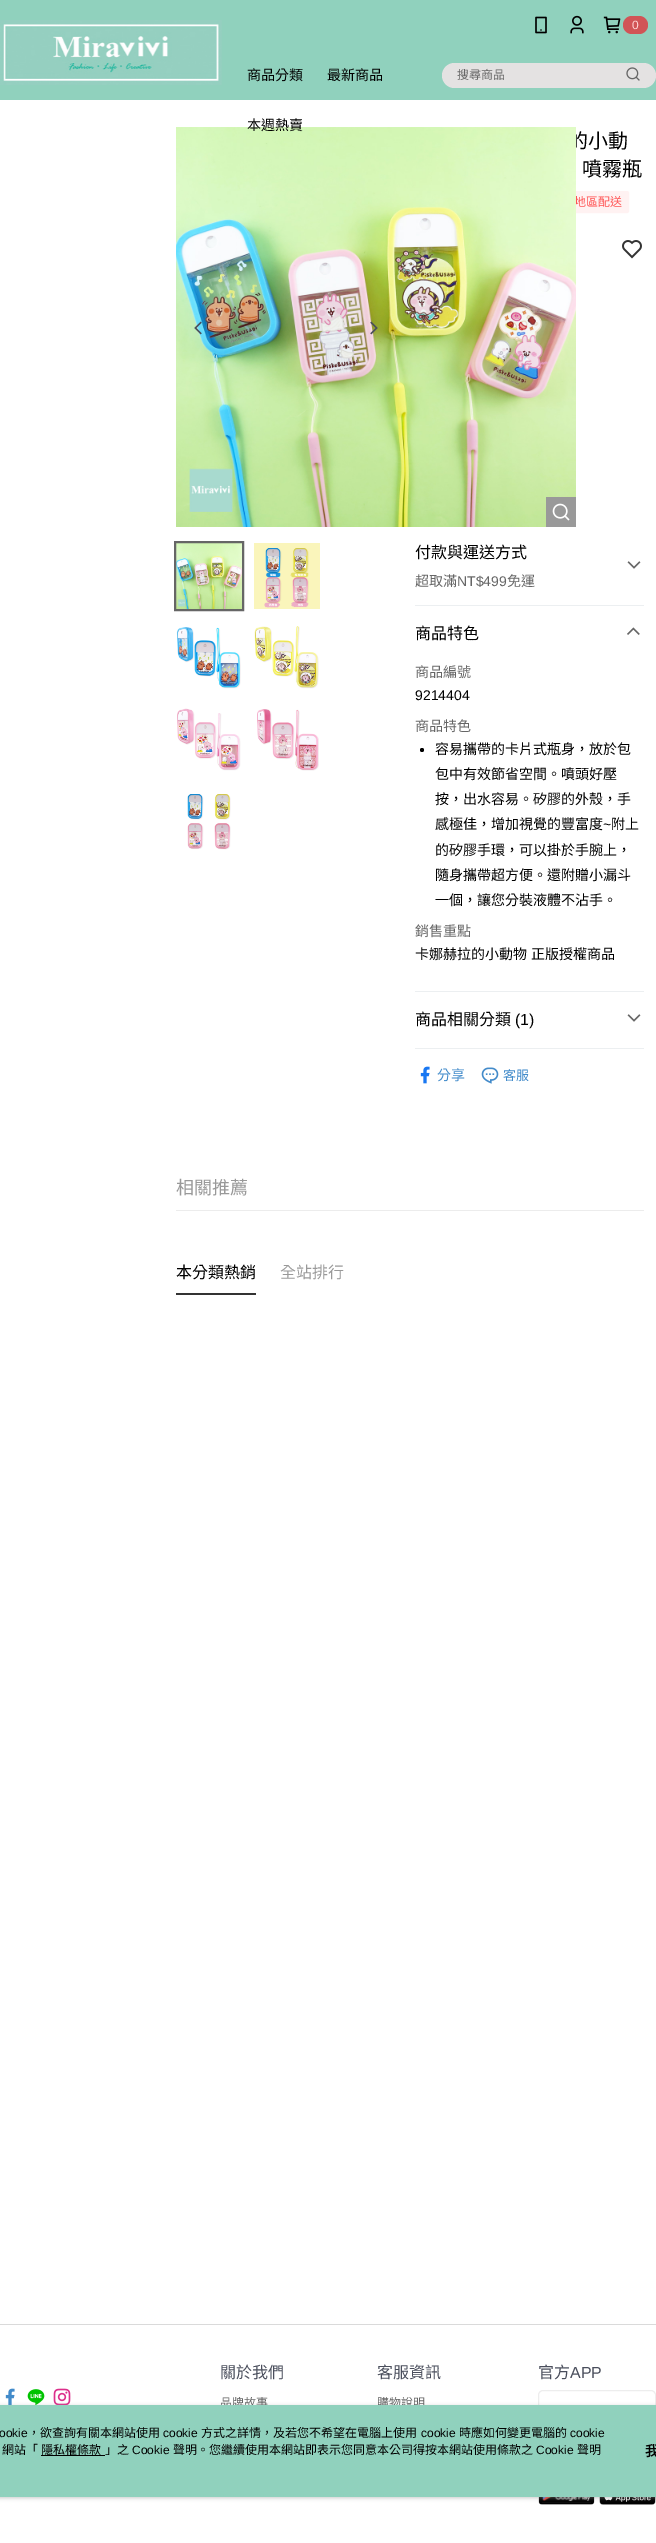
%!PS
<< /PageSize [656 2543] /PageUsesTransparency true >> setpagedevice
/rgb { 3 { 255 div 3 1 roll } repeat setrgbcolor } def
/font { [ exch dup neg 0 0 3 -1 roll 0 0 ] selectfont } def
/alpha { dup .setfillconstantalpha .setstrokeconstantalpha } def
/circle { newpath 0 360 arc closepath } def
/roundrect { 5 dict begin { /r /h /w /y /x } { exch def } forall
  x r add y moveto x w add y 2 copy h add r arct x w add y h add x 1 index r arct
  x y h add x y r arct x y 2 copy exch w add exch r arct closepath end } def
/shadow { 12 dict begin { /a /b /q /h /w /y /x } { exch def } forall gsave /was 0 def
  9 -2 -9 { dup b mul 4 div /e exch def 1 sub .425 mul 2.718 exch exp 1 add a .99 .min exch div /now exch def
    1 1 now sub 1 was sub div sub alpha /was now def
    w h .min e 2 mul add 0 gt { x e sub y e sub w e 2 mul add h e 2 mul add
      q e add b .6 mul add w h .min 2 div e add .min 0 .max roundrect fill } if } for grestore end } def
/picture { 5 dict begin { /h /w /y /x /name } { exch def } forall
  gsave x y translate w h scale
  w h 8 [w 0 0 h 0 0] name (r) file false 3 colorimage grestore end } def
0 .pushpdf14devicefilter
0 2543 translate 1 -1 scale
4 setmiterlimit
255 255 255 rgb
0 0 656 2543 rectfill
144 209 189 rgb
0 0 656 100 rectfill
(img/1.rgb) 0 20 222 65 picture
(img/2.rgb) 535 16 12 18 picture
(img/3.rgb) 570 15 14 19 picture
(img/4.rgb) 603 16 18 18 picture
209 84 86 rgb
623 16 25 18 9 roundrect fill
228 226 226 rgb
442 63 214 25 12.5 roundrect fill
(img/5.rgb) 626 67 14 14 picture
(img/10.rgb) 176 543 66 66 picture
102 102 102 rgb
2 setlinewidth
175 542 68 68 rectstroke
(img/11.rgb) 254 543 66 66 picture
(img/12.rgb) 176 627 65 62 picture
(img/13.rgb) 254 626 65 63 picture
(img/14.rgb) 177 708 64 63 picture
(img/15.rgb) 257 709 62 62 picture
(img/16.rgb) 187 794 44 56 picture
255 242 242 rgb
540.5 191.5 88 21 1.5 roundrect gsave fill grestore
1 setlinewidth
stroke
(img/17.rgb) 622 240 20 19 picture
236 239 241 rgb
415 605 229 1 rectfill
(img/18.rgb) 627 561 14 8 picture
415 991 229 1 rectfill
(img/19.rgb) 627 627 13 8 picture
0 0 0 rgb
422 750 2 circle fill
236 239 241 rgb
415 1048 229 1 rectfill
(img/18.rgb) 627 1014 14 8 picture
(img/20.rgb) 420 1066 10 18 picture
(img/21.rgb) 481 1067 18 17 picture
[
  [176 1210 468 1 236 236 236]
  [176 1293 80 2 51 51 51]
  [0 2324 656 1 218 218 218]
] { aload pop rgb rectfill } forall
237 237 237 rgb
538.5 2390.5 117 39 4.5 roundrect stroke
(img/22.rgb) 538 2497 57 8 picture
(img/23.rgb) 599 2497 57 8 picture
(img/24.rgb) 5 2388 10 17 picture
(img/25.rgb) 27 2389 18 16 picture
(img/26.rgb) 53 2388 18 17 picture
151 151 151 rgb
-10 2406 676 92 4 2 0.5 shadow
/LiberationSans-Regular 12 font
255 213 213 rgb
632 29 moveto (0) show
/NotoSansCJKTC-Regular 14 font
0 0 0 rgb
247 80 moveto (商品分類) show
327 80 moveto (最新商品) show
/NotoSansCJKTC-Regular 12 font
102 102 102 rgb
457 79 moveto (搜尋商品) show
/NotoSansCJKTC-Regular 20 font
0 0 0 rgb
568 148 moveto (的小動) show
582 176 moveto (噴霧瓶) show
/NotoSansCJKTC-Regular 12 font
255 83 83 rgb
574 206 moveto (地區配送) show
(img/6.rgb) 176 127 400 400 picture
/NotoSansCJKTC-Regular 14 font
0 0 0 rgb
247 130 moveto (本週熱賣) show
(img/9.rgb) 370 321 8 14 picture
153 153 153 rgb
546 497 30 30 rectfill
(img/7.rgb) 552 503 18 18 picture
(img/8.rgb) 194 321 8 14 picture
/NotoSansCJKTC-Regular 16 font
0 0 0 rgb
415 558 moveto (付款與運送方式) show
/NotoSansCJKTC-Regular 14 font
102 102 102 rgb
415 586 moveto (超取滿) show
/LiberationSans-Regular 14 font
457 586 moveto (NT$499) show
/NotoSansCJKTC-Regular 14 font
507 586 moveto (免運) show
/NotoSansCJKTC-Regular 16 font
0 0 0 rgb
415 639 moveto (商品特色) show
/NotoSansCJKTC-Regular 14 font
102 102 102 rgb
415 677 moveto (商品編號) show
/LiberationSans-Regular 14 font
0 0 0 rgb
415 700 moveto (9214404) show
/NotoSansCJKTC-Regular 14 font
102 102 102 rgb
415 731 moveto (商品特色) show
0 0 0 rgb
[
  [(容易攜帶的卡片式瓶身，放於包) 435 754]
  [(包中有效節省空間。噴頭好壓) 435 779]
  [(按，出水容易。矽膠的外殼，手) 435 804]
  [(感極佳，增加視覺的豐富度) 435 829]
] { aload pop moveto show } forall
/LiberationSans-Regular 14 font
603 829 moveto (~) show
/NotoSansCJKTC-Regular 14 font
[
  [(附上) 611 829]
  [(的矽膠手環，可以掛於手腕上，) 435 855]
  [(隨身攜帶超方便。還附贈小漏斗) 435 880]
  [(一個，讓您分裝液體不沾手。) 435 905]
] { aload pop moveto show } forall
102 102 102 rgb
415 936 moveto (銷售重點) show
0 0 0 rgb
415 959 moveto 1 0 32 (卡娜赫拉的小動物 正版授權商品) widthshow
/NotoSansCJKTC-Regular 16 font
415 1025 moveto (商品相關分類) show
/LiberationSans-Regular 16 font
515 1025 moveto (\(1\)) show
/NotoSansCJKTC-Regular 14 font
66 139 202 rgb
437 1080 moveto (分享) show
/NotoSansCJKTC-Regular 13 font
503 1080 moveto (客服) show
/NotoSansCJKTC-Regular 18 font
153 153 153 rgb
176 1194 moveto (相關推薦) show
/NotoSansCJKTC-Regular 16 font
0 0 0 rgb
176 1278 moveto (本分類熱銷) show
153 153 153 rgb
280 1278 moveto (全站排行) show
74 78 92 rgb
220 2378 moveto (關於我們) show
/NotoSansCJKTC-Regular 12 font
102 102 102 rgb
220 2407 moveto (品牌故事) show
/NotoSansCJKTC-Regular 16 font
74 78 92 rgb
377 2378 moveto (客服資訊) show
/NotoSansCJKTC-Regular 12 font
102 102 102 rgb
377 2407 moveto (購物說明) show
/NotoSansCJKTC-Regular 16 font
74 78 92 rgb
538 2378 moveto (官方) show
/LiberationSans-Regular 16 font
570 2378 moveto (APP) show
144 209 189 rgb
0 2405 656 92 rectfill
/LiberationSans-Regular 12 font
0 0 0 rgb
-1 2437 moveto (ookie) show
/NotoSansCJKTC-Regular 12 font
28 2437 moveto (，欲查詢有關本網站使用) show
/LiberationSans-Regular 12 font
163 2437 moveto (cookie) show
/NotoSansCJKTC-Regular 12 font
201 2437 moveto (方式之詳情，及若您不希望在電腦上使用) show
/LiberationSans-Regular 12 font
421 2437 moveto (cookie) show
/NotoSansCJKTC-Regular 12 font
459 2437 moveto (時應如何變更電腦的) show
/LiberationSans-Regular 12 font
570 2437 moveto (cookie) show
/NotoSansCJKTC-Regular 12 font
2 2454 moveto (網站「) show
41 2454 moveto (隱私權條款) show
41 2455 64 1 rectfill
105 2454 moveto (」之) show
/LiberationSans-Regular 12 font
132 2454 moveto (Cookie) show
/NotoSansCJKTC-Regular 12 font
173 2454 moveto (聲明。您繼續使用本網站即表示您同意本公司得按本網站使用條款之) show
/LiberationSans-Regular 12 font
536 2454 moveto (Cookie) show
/NotoSansCJKTC-Regular 12 font
577 2454 moveto (聲明) show
/NotoSansCJKTC-Bold 14 font
645 2456 moveto (我) show
.poppdf14devicefilter showpage
